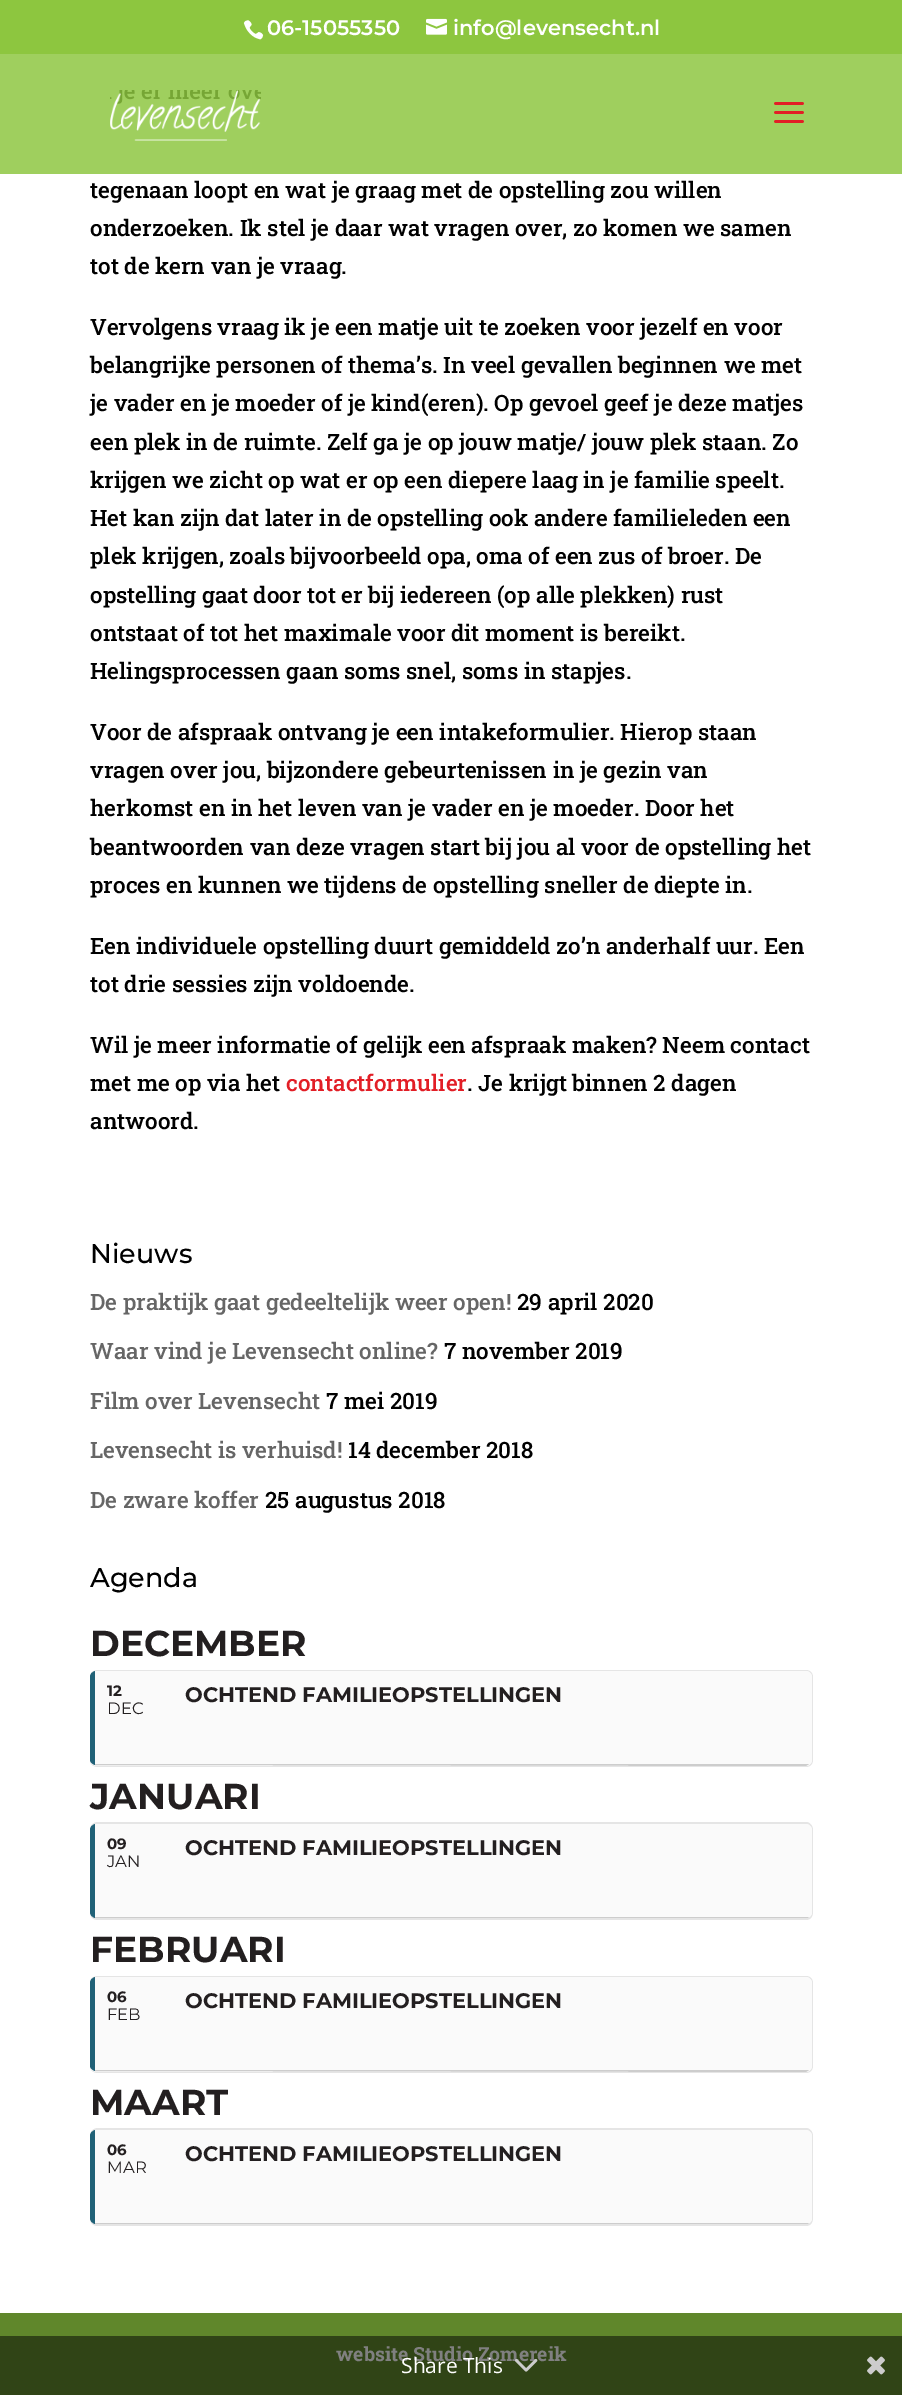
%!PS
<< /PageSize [902 2395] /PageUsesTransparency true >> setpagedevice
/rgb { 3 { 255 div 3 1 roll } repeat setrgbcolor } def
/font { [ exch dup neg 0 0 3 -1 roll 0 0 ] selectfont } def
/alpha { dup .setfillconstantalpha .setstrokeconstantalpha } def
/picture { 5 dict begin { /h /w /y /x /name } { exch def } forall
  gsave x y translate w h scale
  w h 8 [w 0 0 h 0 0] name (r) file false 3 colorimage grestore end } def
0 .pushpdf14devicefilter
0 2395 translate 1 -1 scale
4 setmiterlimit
255 255 255 rgb
0 0 902 2395 rectfill
141 198 63 rgb
0 0 902 54 rectfill
(img/1.rgb) 243 20 21 20 picture
(img/2.rgb) 426 18 21 17 picture
0.84 alpha
0 54 902 120 rectfill
1 alpha
(img/3.rgb) 110 90 151 51 picture
(img/4.rgb) 774 102 30 21 picture
229 229 229 rgb
98 1670 moveto 806 1670 lineto 810 1670 813 1673 813 1677 curveto 813 1760 lineto 813 1764 810 1767 806 1767 curveto 98 1767 lineto 93 1767 90 1764 90 1760 curveto 90 1677 lineto 90 1673 93 1670 98 1670 curveto closepath 98 1671 moveto 806 1671 lineto 809 1671 812 1674 812 1677 curveto 812 1760 lineto 812 1763 809 1766 806 1766 curveto 98 1766 lineto 93 1766 90 1763 90 1760 curveto 90 1677 lineto 90 1674 93 1671 98 1671 curveto closepath eofill
250 250 250 rgb
98 1671 moveto 93 1671 90 1674 90 1677 curveto 90 1760 lineto 90 1763 93 1766 98 1766 curveto 806 1766 lineto 809 1766 812 1763 812 1760 curveto 812 1677 lineto 812 1674 809 1671 806 1671 curveto closepath fill
32 97 119 rgb
90 1677 moveto 90 1760 lineto 90 1762 92 1764 95 1765 curveto 95 1671 lineto 92 1672 90 1674 90 1677 curveto closepath fill
205 205 205 rgb
95 1764 moveto 809 1764 lineto 808 1765 807 1765 806 1766 curveto 95 1765 lineto closepath fill
229 229 229 rgb
98 1822 moveto 806 1822 lineto 810 1822 813 1826 813 1830 curveto 813 1912 lineto 813 1917 810 1920 806 1920 curveto 98 1920 lineto 93 1920 90 1917 90 1912 curveto 90 1830 lineto 90 1826 93 1822 98 1822 curveto closepath 98 1824 moveto 806 1824 lineto 809 1824 812 1827 812 1830 curveto 812 1912 lineto 812 1916 809 1918 806 1918 curveto 98 1918 lineto 93 1918 90 1916 90 1912 curveto 90 1830 lineto 90 1827 93 1824 98 1824 curveto closepath eofill
250 250 250 rgb
98 1824 moveto 93 1824 90 1827 90 1830 curveto 90 1912 lineto 90 1916 93 1918 98 1918 curveto 806 1918 lineto 809 1918 812 1916 812 1912 curveto 812 1830 lineto 812 1827 809 1824 806 1824 curveto closepath fill
32 97 119 rgb
90 1830 moveto 90 1912 lineto 90 1915 92 1917 95 1918 curveto 95 1824 lineto 92 1825 90 1827 90 1830 curveto closepath fill
205 205 205 rgb
95 1917 moveto 809 1917 lineto 808 1918 807 1918 806 1918 curveto 95 1918 lineto closepath fill
229 229 229 rgb
98 1976 moveto 806 1976 lineto 810 1976 813 1979 813 1983 curveto 813 2066 lineto 813 2070 810 2073 806 2073 curveto 98 2073 lineto 93 2073 90 2070 90 2066 curveto 90 1983 lineto 90 1979 93 1976 98 1976 curveto closepath 98 1977 moveto 806 1977 lineto 809 1977 812 1980 812 1983 curveto 812 2066 lineto 812 2069 809 2072 806 2072 curveto 98 2072 lineto 93 2072 90 2069 90 2066 curveto 90 1983 lineto 90 1980 93 1977 98 1977 curveto closepath eofill
250 250 250 rgb
98 1977 moveto 93 1977 90 1980 90 1983 curveto 90 2066 lineto 90 2069 93 2072 98 2072 curveto 806 2072 lineto 809 2072 812 2069 812 2066 curveto 812 1983 lineto 812 1980 809 1977 806 1977 curveto closepath fill
32 97 119 rgb
90 1983 moveto 90 2066 lineto 90 2068 92 2070 95 2071 curveto 95 1977 lineto 92 1978 90 1980 90 1983 curveto closepath fill
205 205 205 rgb
95 2070 moveto 809 2070 lineto 808 2071 807 2071 806 2072 curveto 95 2071 lineto closepath fill
229 229 229 rgb
98 2128 moveto 806 2128 lineto 810 2128 813 2132 813 2136 curveto 813 2218 lineto 813 2223 810 2226 806 2226 curveto 98 2226 lineto 93 2226 90 2223 90 2218 curveto 90 2136 lineto 90 2132 93 2128 98 2128 curveto closepath 98 2130 moveto 806 2130 lineto 809 2130 812 2133 812 2136 curveto 812 2218 lineto 812 2222 809 2224 806 2224 curveto 98 2224 lineto 93 2224 90 2222 90 2218 curveto 90 2136 lineto 90 2133 93 2130 98 2130 curveto closepath eofill
250 250 250 rgb
98 2130 moveto 93 2130 90 2133 90 2136 curveto 90 2218 lineto 90 2222 93 2224 98 2224 curveto 806 2224 lineto 809 2224 812 2222 812 2218 curveto 812 2136 lineto 812 2133 809 2130 806 2130 curveto closepath fill
32 97 119 rgb
90 2136 moveto 90 2218 lineto 90 2221 92 2223 95 2224 curveto 95 2130 lineto 92 2131 90 2133 90 2136 curveto closepath fill
205 205 205 rgb
95 2223 moveto 809 2223 lineto 808 2224 807 2224 806 2224 curveto 95 2224 lineto closepath fill
96 135 43 rgb
0 2313 902 23 rectfill
48 68 22 rgb
0 2336 902 59 rectfill
(img/6.rgb) 867 2356 18 19 picture
/Montserrat-SemiBold 21 font
255 255 255 rgb
267 35 moveto (06-15055350) show
453 35 moveto (info@levensecht.nl) show
/RobotoSlab-Medium 22.5 font
0 0 0 rgb
[
  [(tegenaan loopt en wat je graag met de opstelling zou willen) 90 198]
  [(onderzoeken. Ik stel je daar wat vragen over, zo komen we samen) 90 236]
  [(tot de kern van je vraag.) 90 274]
  [(Vervolgens vraag ik je een matje uit te zoeken voor jezelf en voor) 90 335]
  [(belangrijke personen of thema’s. In veel gevallen beginnen we met) 90 373]
  [(je vader en je moeder of je kind\(eren\). Op gevoel geef je deze matjes) 90 411]
  [(een plek in de ruimte. Zelf ga je op jouw matje/ jouw plek staan. Zo) 90 450]
  [(krijgen we zicht op wat er op een diepere laag in je familie speelt.) 90 488]
  [(Het kan zijn dat later in de opstelling ook andere familieleden een) 90 526]
  [(plek krijgen, zoals bijvoorbeeld opa, oma of een zus of broer. De) 90 564]
  [(opstelling gaat door tot er bij iedereen \(op alle plekken\) rust) 90 603]
  [(ontstaat of tot het maximale voor dit moment is bereikt.) 90 641]
  [(Helingsprocessen gaan soms snel, soms in stapjes.) 90 679]
  [(Voor de afspraak ontvang je een intakeformulier. Hierop staan) 90 740]
  [(vragen over jou, bijzondere gebeurtenissen in je gezin van) 90 778]
  [(herkomst en in het leven van je vader en je moeder. Door het) 90 816]
  [(beantwoorden van deze vragen start bij jou al voor de opstelling het) 90 855]
  [(proces en kunnen we tijdens de opstelling sneller de diepte in.) 90 893]
  [(Een individuele opstelling duurt gemiddeld zo’n anderhalf uur. Een) 90 954]
  [(tot drie sessies zijn voldoende.) 90 992]
  [(Wil je meer informatie of gelijk een afspraak maken? Neem contact) 90 1053]
  [(met me op via het) 90 1091]
] { aload pop moveto show } forall
226 30 38 rgb
286 1091 moveto (contactformulier) show
0 0 0 rgb
467 1091 moveto (. Je krijgt binnen 2 dagen) show
90 1129 moveto (antwoord.) show
/Montserrat-Medium 27 font
90 1263 moveto (Nieuws) show
/RobotoSlab-Medium 22.5 font
102 102 102 rgb
90 1310 moveto (De praktijk gaat gedeeltelijk weer open!) show
0 0 0 rgb
517 1310 moveto (29 april 2020) show
102 102 102 rgb
90 1359 moveto (Waar vind je Levensecht online?) show
0 0 0 rgb
444 1359 moveto (7 november 2019) show
102 102 102 rgb
90 1409 moveto (Film over Levensecht) show
0 0 0 rgb
326 1409 moveto (7 mei 2019) show
102 102 102 rgb
90 1458 moveto (Levensecht is verhuisd!) show
0 0 0 rgb
348 1458 moveto (14 december 2018) show
102 102 102 rgb
90 1508 moveto (De zware koffer) show
0 0 0 rgb
265 1508 moveto (25 augustus 2018) show
/Montserrat-Medium 27 font
90 1587 moveto (Agenda) show
/Montserrat-Bold 36 font
35 31 32 rgb
90 1656 moveto (DECEMBER) show
/Montserrat-Bold 15 font
107 1696 moveto (12) show
/Montserrat-Regular 16.5 font
107 1714 moveto (DEC) show
/Montserrat-Bold 21 font
185 1702 moveto (OCHTEND FAMILIEOPSTELLINGEN) show
/Montserrat-Bold 36 font
90 1809 moveto (JANUARI) show
/Montserrat-Bold 15 font
107 1849 moveto (09) show
/Montserrat-Regular 16.5 font
107 1867 moveto (JAN) show
/Montserrat-Bold 21 font
185 1855 moveto (OCHTEND FAMILIEOPSTELLINGEN) show
/Montserrat-Bold 36 font
90 1962 moveto (FEBRUARI) show
/Montserrat-Bold 15 font
107 2002 moveto (06) show
/Montserrat-Regular 16.5 font
107 2020 moveto (FEB) show
/Montserrat-Bold 21 font
185 2008 moveto (OCHTEND FAMILIEOPSTELLINGEN) show
/Montserrat-Bold 36 font
90 2115 moveto (MAART) show
/Montserrat-Bold 15 font
107 2155 moveto (06) show
/Montserrat-Regular 16.5 font
107 2173 moveto (MAR) show
/Montserrat-Bold 21 font
185 2161 moveto (OCHTEND FAMILIEOPSTELLINGEN) show
/RobotoSlab-Bold 19.5 font
128 128 128 rgb
336 2361 moveto (website Studio Zomereik) show
/OpenSans-Regular 21 font
255 255 255 rgb
401 2373 moveto (Share This) show
(img/5.rgb) 514 2359 24 13 picture
.poppdf14devicefilter showpage
